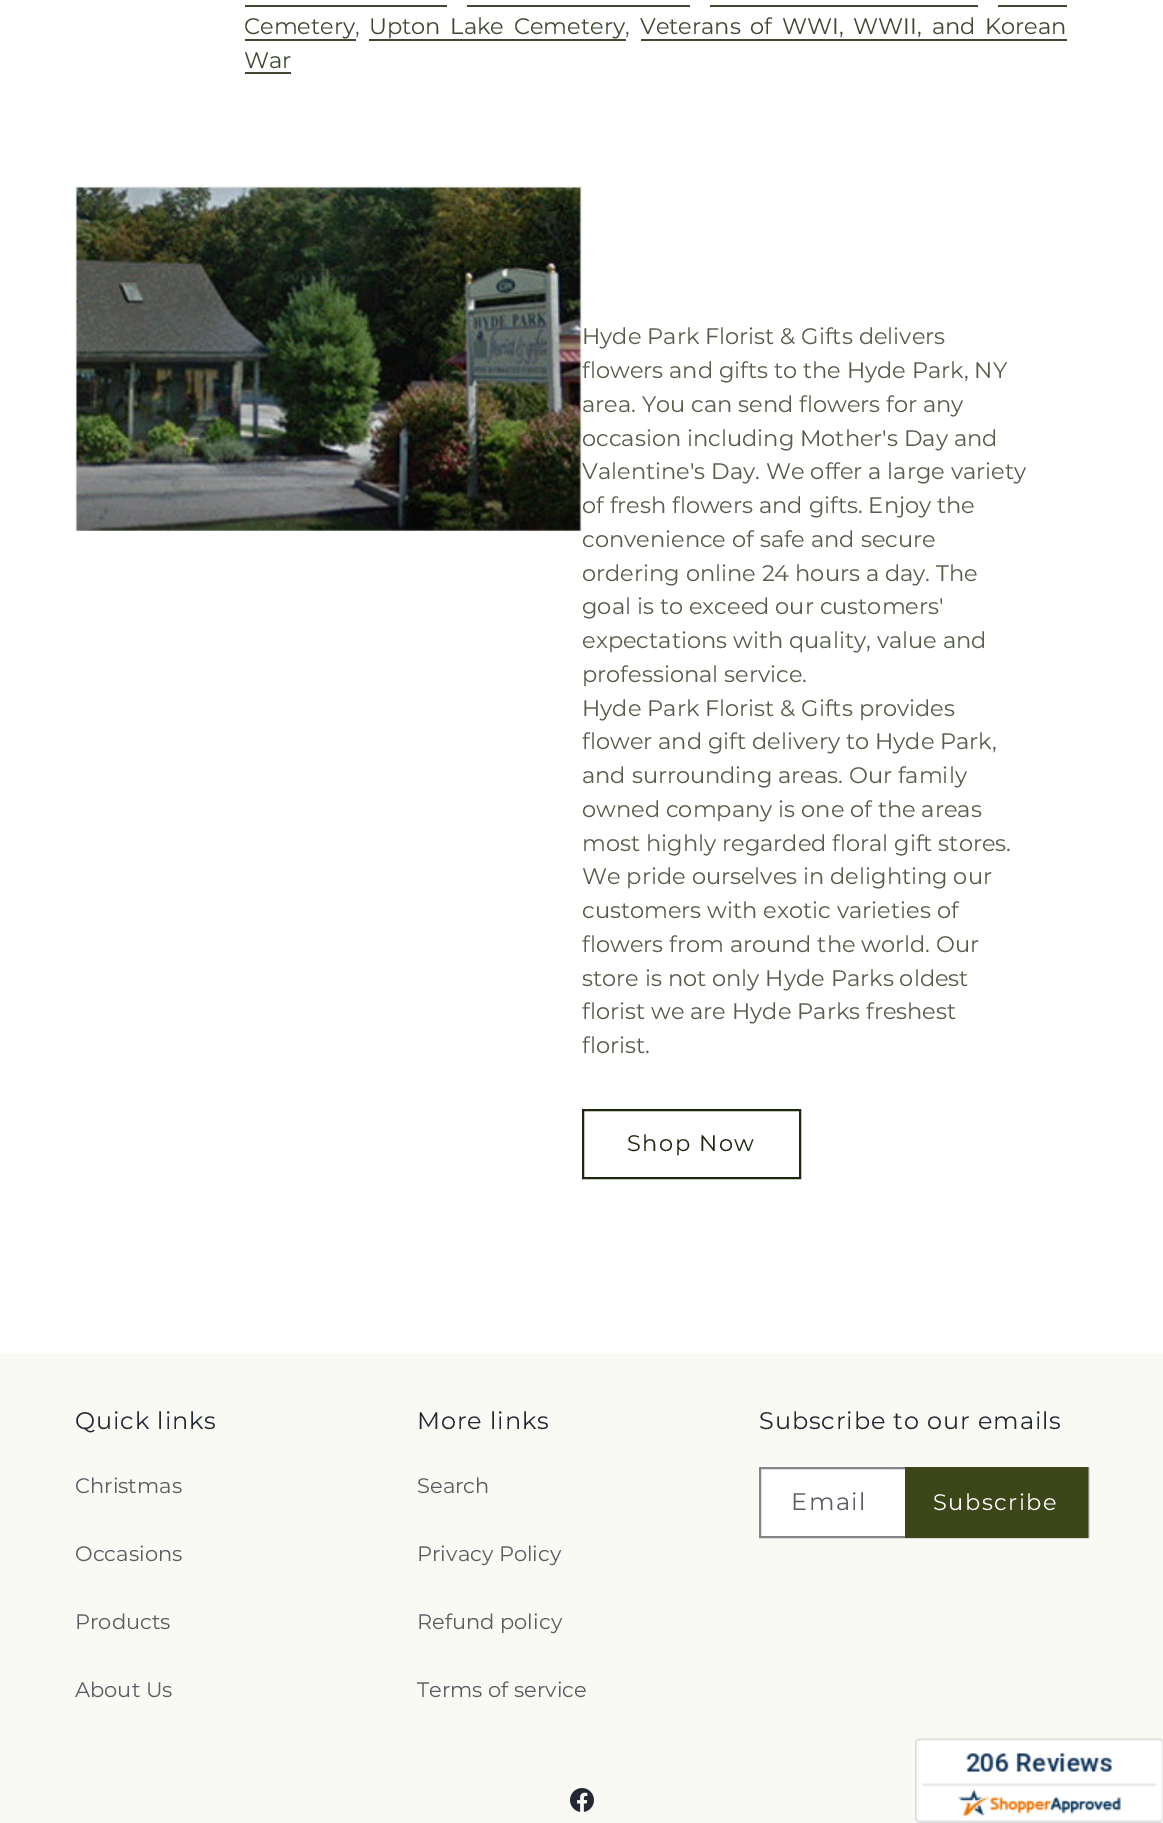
%!PS
<< /PageSize [1163 1823] >> setpagedevice
/rgb { 3 { 255 div 3 1 roll } repeat setrgbcolor } def
/font { [ exch dup neg 0 0 3 -1 roll 0 0 ] selectfont } def
/picture { 5 dict begin { /h /w /y /x /name } { exch def } forall
  gsave x y translate w h scale
  w h 8 [w 0 0 h 0 0] name (r) file false 3 colorimage grestore end } def
0 1823 translate 1 -1 scale
4 setmiterlimit
255 255 255 rgb
0 0 1163 1823 rectfill
[
  [245 5 202 2 64 72 51]
  [467 5 223 2 64 72 51]
  [710 5 268 2 64 72 51]
  [998 5 69 2 64 72 51]
  [245 39 111 2 64 72 51]
  [369 39 257 2 64 72 51]
  [641 39 426 2 64 72 51]
  [245 72 46 2 64 72 51]
] { aload pop rgb rectfill } forall
244 244 243 rgb
2 setlinewidth
76 187 505 343 rectstroke
(img/1.rgb) 76 187 505 344 picture
30 40 15 rgb
583 1110 217 68 rectstroke
250 250 245 rgb
0 1353 1163 470 rectfill
255 255 255 rgb
761 1469 144 67 rectfill
132 135 138 rgb
760 1468 328 69 rectstroke
60 70 24 rgb
905 1467 183 71 rectfill
(img/2.rgb) 570 1788 24 24 picture
(img/3.rgb) 915 1738 248 85 picture
/Montserrat-Regular 22.5 font
64 72 51 rgb
244 34 moveto (Cemetery) show
86 94 75 rgb
355 34 moveto (,) show
64 72 51 rgb
369 34 moveto 4 0 32 (Upton Lake Cemetery) widthshow
86 94 75 rgb
625 34 moveto (,) show
64 72 51 rgb
640 34 moveto 4 0 32 (Veterans of WWI, WWII, and Korean) widthshow
244 68 moveto (War) show
86 94 75 rgb
[
  [(Hyde Park Florist & Gifts delivers) 582 344]
  [(flowers and gifts to the Hyde Park, NY) 582 378]
  [(area. You can send flowers for any) 582 412]
  [(occasion including Mother's Day and) 582 446]
  [(Valentine's Day. We offer a large variety) 582 479]
  [(of fresh flowers and gifts. Enjoy the) 582 513]
  [(convenience of safe and secure) 582 547]
  [(ordering online 24 hours a day. The) 582 581]
  [(goal is to exceed our customers') 582 614]
  [(expectations with quality, value and) 582 648]
  [(professional service.) 582 682]
  [(Hyde Park Florist & Gifts provides) 582 716]
  [(flower and gift delivery to Hyde Park,) 582 749]
  [(and surrounding areas. Our family) 582 783]
  [(owned company is one of the areas) 582 817]
  [(most highly regarded floral gift stores.) 582 851]
  [(We pride ourselves in delighting our) 582 884]
  [(customers with exotic varieties of) 582 918]
  [(flowers from around the world. Our) 582 952]
  [(store is not only Hyde Parks oldest) 582 986]
  [(florist we are Hyde Parks freshest) 582 1019]
  [(florist.) 582 1053]
] { aload pop moveto show } forall
30 40 15 rgb
627 1151 moveto 1.5 0 (Shop Now) ashow
/Montserrat-Regular 24 font
36 40 51 rgb
75 1429 moveto 0.9 0 (Quick links) ashow
/Montserrat-Regular 21 font
90 93 100 rgb
[
  [(Christmas) 75 1493]
  [(Occasions) 75 1561]
  [(Products) 75 1629]
  [(About Us) 75 1697]
] { aload pop moveto show } forall
/Montserrat-Regular 24 font
36 40 51 rgb
417 1429 moveto 0.9 0 (More links) ashow
/Montserrat-Regular 21 font
90 93 100 rgb
[
  [(Search) 417 1493]
  [(Privacy Policy) 417 1561]
  [(Refund policy) 417 1629]
  [(Terms of service) 417 1697]
] { aload pop moveto show } forall
/Montserrat-Regular 24 font
36 40 51 rgb
759 1429 moveto 0.9 0 (Subscribe to our emails) ashow
90 93 100 rgb
791 1510 moveto 1.5 0 (Email) ashow
/Montserrat-Regular 22.5 font
255 255 255 rgb
933 1510 moveto 1.5 0 (Subscribe) ashow
showpage
